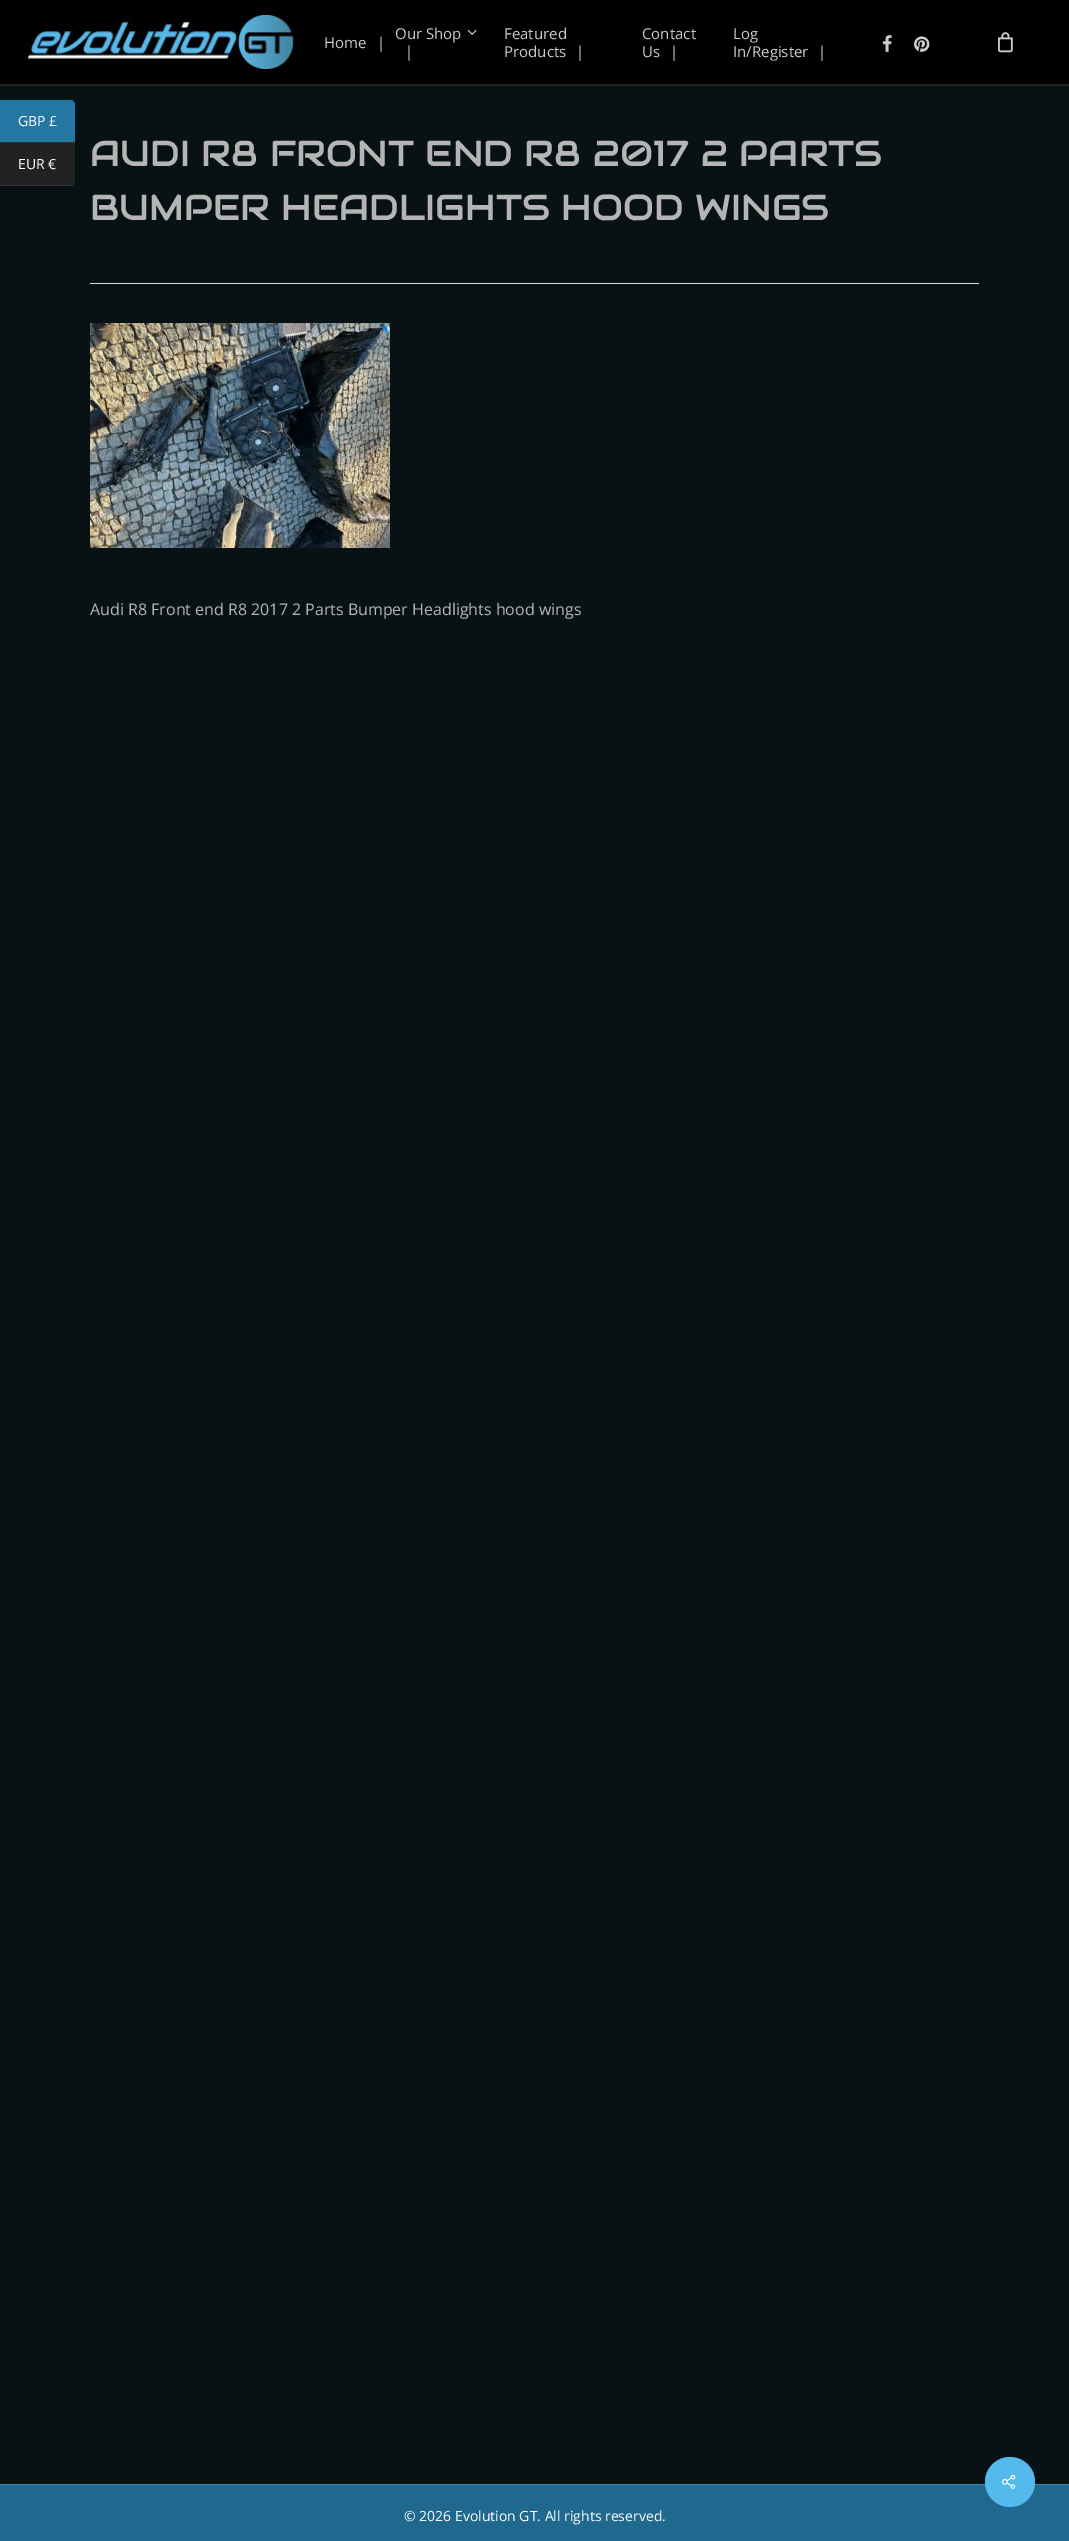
%!PS
<< /PageSize [1069 2541] >> setpagedevice
/rgb { 3 { 255 div 3 1 roll } repeat setrgbcolor } def
/font { [ exch dup neg 0 0 3 -1 roll 0 0 ] selectfont } def
/circle { newpath 0 360 arc closepath } def
/picture { 5 dict begin { /h /w /y /x /name } { exch def } forall
  gsave x y translate w h scale
  w h 8 [w 0 0 h 0 0] name (r) file false 3 colorimage grestore end } def
0 2541 translate 1 -1 scale
4 setmiterlimit
8 18 20 rgb
0 0 1069 2541 rectfill
35 119 162 rgb
0 100 moveto 70 100 lineto 73 100 75 102 75 105 curveto 75 143 lineto 0 143 lineto closepath fill
51 51 51 rgb
0 142 75 1 rectfill
34 34 34 rgb
0 143 moveto 75 143 lineto 75 181 lineto 75 184 73 186 70 186 curveto 0 186 lineto closepath fill
[
  [0 185 73 1 51 51 51]
  [0 0 1069 84 0 0 0]
  [0 84 1069 2 34 34 34]
] { aload pop rgb rectfill } forall
(img/1.rgb) 28 15 266 54 picture
(img/2.rgb) 467 29 10 6 picture
(img/3.rgb) 882 35 10 17 picture
(img/4.rgb) 914 36 16 16 picture
(img/5.rgb) 998 32 15 21 picture
221 221 221 rgb
90 283 889 1 rectfill
(img/6.rgb) 90 323 300 225 picture
31 105 143 rgb
0 2485 1069 56 rectfill
71 132 163 rgb
0 2484 1069 1 rectfill
84 185 236 rgb
1010 2482 25 circle fill
(img/7.rgb) 1002 2474 14 15 picture
/OpenSans-Regular 14 font
255 255 255 rgb
18 126 moveto (GBP £) show
18 169 moveto (EUR €) show
/OpenSans-Regular 15 font
204 204 204 rgb
[
  [(Home) 324 48]
  [(|) 377 48]
  [(Our Shop) 395 39]
  [(|) 405 57]
  [(Featured) 504 39]
  [(Products) 504 57]
  [(|) 576 57]
  [(Contact) 642 39]
  [(Us) 642 57]
  [(|) 670 57]
  [(Log) 733 39]
  [(In/Register) 733 57]
  [(|) 818 57]
] { aload pop moveto show } forall
/Audiowide-Regular 36 font
181 181 181 rgb
90 166 moveto (AUDI R8 FRONT END R8 2017 2 PARTS) show
90 220 moveto (BUMPER HEADLIGHTS HOOD WINGS) show
/OpenSans-Regular 16 font
90 615 moveto (Audi R8 Front end R8 2017 2 Parts Bumper Headlights hood wings) show
/OpenSans-Regular 14 font
255 255 255 rgb
404 2521 moveto (© 2026 Evolution GT. All rights reserved.) show
showpage
